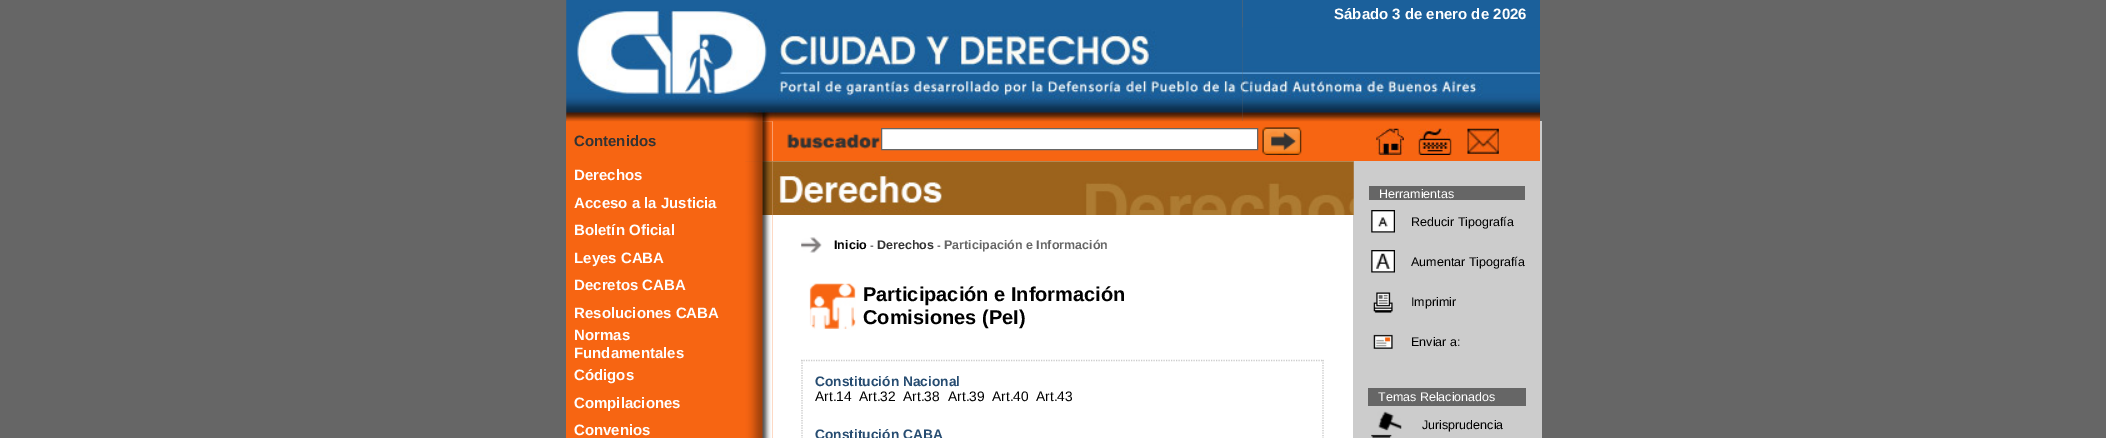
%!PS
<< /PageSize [2106 438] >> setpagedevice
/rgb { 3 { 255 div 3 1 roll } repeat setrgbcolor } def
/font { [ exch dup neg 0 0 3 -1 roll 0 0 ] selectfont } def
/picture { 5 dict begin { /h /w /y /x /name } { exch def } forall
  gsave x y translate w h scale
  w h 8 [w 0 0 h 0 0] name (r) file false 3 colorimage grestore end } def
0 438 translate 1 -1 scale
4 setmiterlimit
102 102 102 rgb
0 0 2106 438 rectfill
(img/3.rgb) 745 121 28 317 picture
247 101 18 rgb
566 121 179 317 rectfill
(img/4.rgb) 745 121 28 41 picture
204 204 204 rgb
1353 121 189 317 rectfill
247 101 18 rgb
773 121 767 40 rectfill
(img/1.rgb) 566 0 677 122 picture
27 96 155 rgb
1243 0 297 28 rectfill
(img/2.rgb) 1242 27 298 95 picture
(img/6.rgb) 745 161 28 277 picture
(img/5.rgb) 745 121 28 41 picture
(img/7.rgb) 745 161 28 54 picture
255 255 255 rgb
773 161 580 277 rectfill
(img/8.rgb) 787 133 94 16 picture
881.5 128.5 moveto 1257.5 128.5 lineto 1257.5 149.5 lineto 881.5 149.5 lineto closepath gsave fill grestore
102 102 102 rgb
stroke
(img/9.rgb) 1262 127 40 28 picture
(img/10.rgb) 1376 128 28 27 picture
(img/11.rgb) 1418 128 34 27 picture
(img/12.rgb) 1467 128 32 26 picture
(img/13.rgb) 801 237 21 16 picture
(img/14.rgb) 809 283 47 47 picture
204 204 204 rgb
1.2 setlinewidth
[1.25 1.25] 0 setdash
801 360.5 moveto 1324 360.5 lineto stroke
1323 360 moveto 1323 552.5 lineto stroke
802 360 moveto 802 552.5 lineto stroke
(img/15.rgb) 772 161 582 54 picture
102 102 102 rgb
1369 186 156 14 rectfill
(img/16.rgb) 1371 210 24 23 picture
(img/17.rgb) 1371 250 24 23 picture
(img/18.rgb) 1373 292 20 21 picture
(img/19.rgb) 1373 334 20 15 picture
1368 388 158 18 rectfill
(img/20.rgb) 1371 411 31 27 picture
/LiberationSans-Bold 15 font
255 255 255 rgb
1334 19 moveto (Sábado 3 de enero de 2026) show
51 51 51 rgb
574 146 moveto (Contenidos) show
255 255 255 rgb
[
  [(Derechos) 574 180]
  [(Acceso a la Justicia) 574 208]
  [(Boletín Oficial) 574 235]
  [(Leyes CABA) 574 263]
  [(Decretos CABA) 574 290]
  [(Resoluciones CABA) 574 318]
  [(Normas) 574 340]
  [(Fundamentales) 574 358]
  [(Códigos) 574 380]
  [(Compilaciones) 574 408]
  [(Convenios) 574 435]
] { aload pop moveto show } forall
/LiberationSans-Bold 12.5 font
0 0 0 rgb
834 249 moveto (Inicio) show
/LiberationSans-Regular 11 font
870 249 moveto (-) show
/LiberationSans-Bold 12.5 font
51 51 51 rgb
877 249 moveto (Derechos) show
/LiberationSans-Regular 11 font
0 0 0 rgb
937 249 moveto (-) show
/LiberationSans-Bold 12.5 font
102 102 102 rgb
944 249 moveto (Participación e Información) show
/LiberationSans-Bold 20 font
0 0 0 rgb
863 301 moveto (Participación e Información) show
863 324 moveto (Comisiones \(PeI\)) show
/LiberationSans-Bold 13.75 font
38 76 113 rgb
815 386 moveto (Constitución Nacional) show
/LiberationSans-Regular 13.75 font
0 0 0 rgb
[
  [(Art.14) 815 401]
  [(Art.32) 859 401]
  [(Art.38) 903 401]
  [(Art.39) 948 401]
  [(Art.40) 992 401]
  [(Art.43) 1036 401]
] { aload pop moveto show } forall
/LiberationSans-Bold 13.75 font
38 76 113 rgb
815 439 moveto (Constitución CABA) show
/LiberationSans-Regular 12.5 font
255 255 255 rgb
1379 198 moveto (Herramientas) show
0 0 0 rgb
[
  [(Reducir Tipografía) 1411 226]
  [(Aumentar Tipografía) 1411 266]
  [(Imprimir) 1411 306]
  [(Enviar a:) 1411 346]
] { aload pop moveto show } forall
255 255 255 rgb
1378 401 moveto (Temas Relacionados) show
0 0 0 rgb
1422 429 moveto (Jurisprudencia) show
showpage
